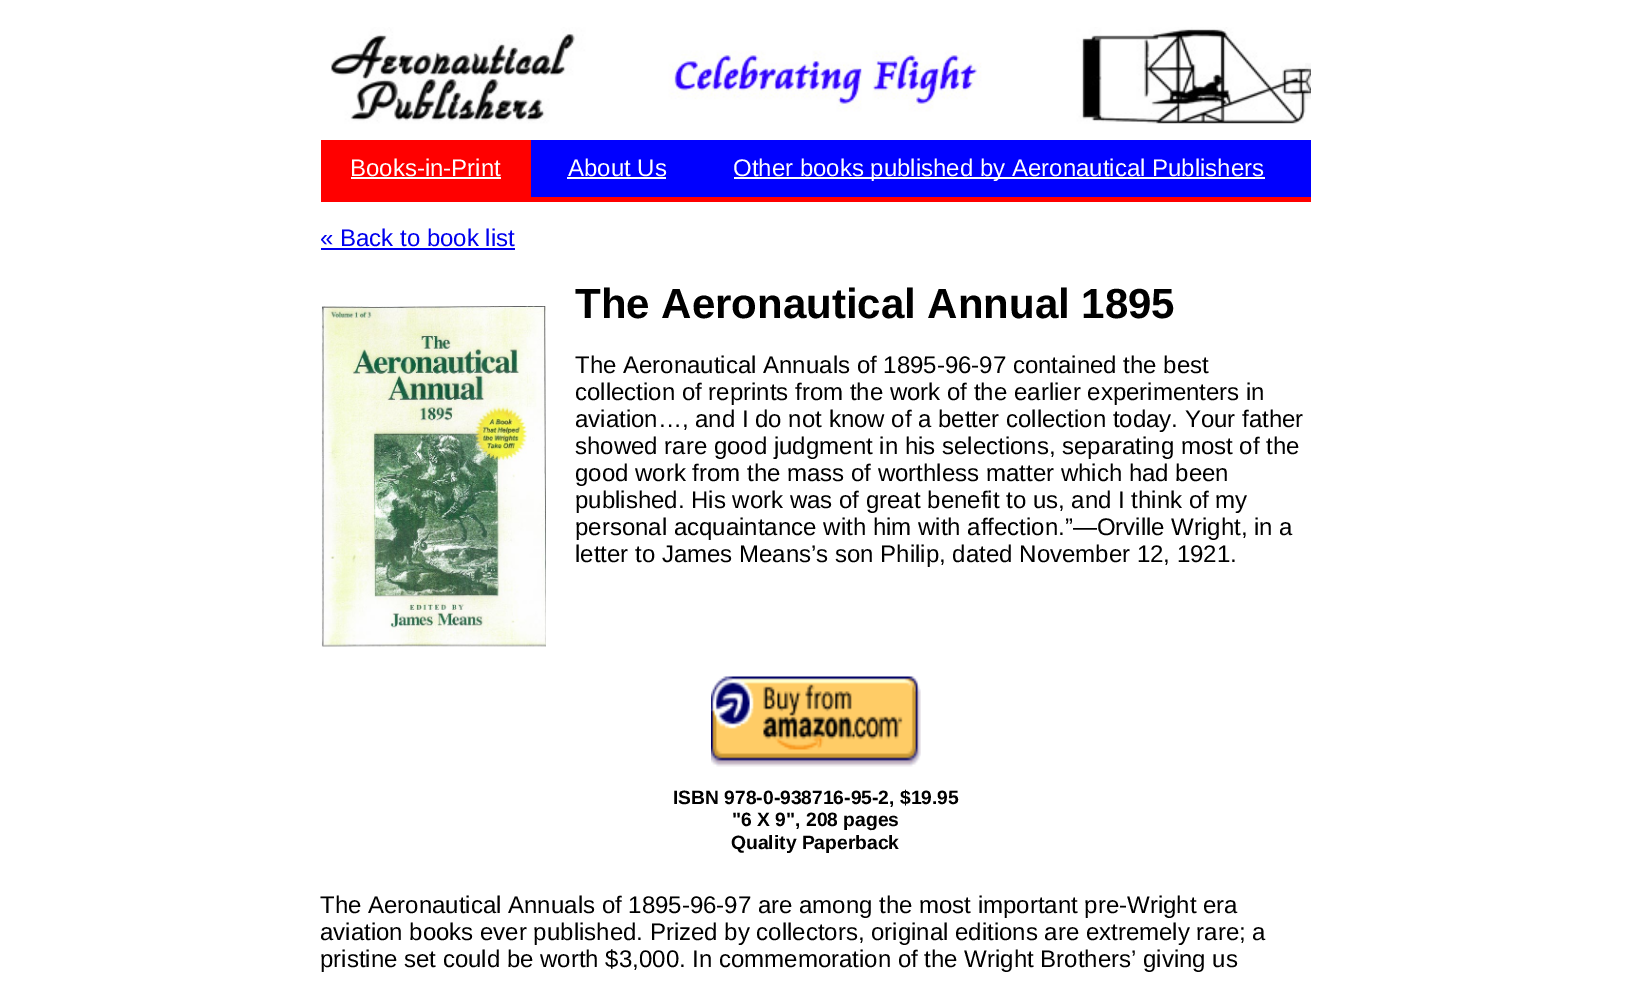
%!PS
<< /PageSize [1630 987] >> setpagedevice
/rgb { 3 { 255 div 3 1 roll } repeat setrgbcolor } def
/font { [ exch dup neg 0 0 3 -1 roll 0 0 ] selectfont } def
/picture { 5 dict begin { /h /w /y /x /name } { exch def } forall
  gsave x y translate w h scale
  w h 8 [w 0 0 h 0 0] name (r) file false 3 colorimage grestore end } def
0 987 translate 1 -1 scale
4 setmiterlimit
255 255 255 rgb
0 0 1630 987 rectfill
(img/1.rgb) 330 27 981 97 picture
[
  [531 140 780 57 0 0 255]
  [321 197 990 5 255 0 0]
  [321 140 210 57 255 0 0]
  [351 177 150 2 255 255 255]
  [567 177 99 2 255 255 255]
  [734 177 531 2 255 255 255]
  [321 248 194 2 0 0 238]
] { aload pop rgb rectfill } forall
(img/2.rgb) 321 306 225 341 picture
(img/3.rgb) 711 676 210 91 picture
/LiberationSans-Regular 24 font
255 255 255 rgb
[
  [(Books-in-Print) 350 176]
  [(About Us) 568 176]
  [(Other books published by Aeronautical Publishers) 733 176]
] { aload pop moveto show } forall
0 0 238 rgb
320 246 moveto (« Back to book list) show
/LiberationSans-Bold 42 font
0 0 0 rgb
575 318 moveto (The Aeronautical Annual 1895) show
/LiberationSans-Regular 24 font
[
  [(The Aeronautical Annuals of 1895-96-97 contained the best) 575 373]
  [(collection of reprints from the work of the earlier experimenters in) 575 400]
  [(aviation…, and I do not know of a better collection today. Your father) 575 427]
  [(showed rare good judgment in his selections, separating most of the) 575 454]
  [(good work from the mass of worthless matter which had been) 575 481]
  [(published. His work was of great benefit to us, and I think of my) 575 508]
  [(personal acquaintance with him with affection.”—Orville Wright, in a) 575 535]
  [(letter to James Means’s son Philip, dated November 12, 1921.) 575 562]
] { aload pop moveto show } forall
/LiberationSans-Bold 19.25 font
[
  [(ISBN 978-0-938716-95-2, $19.95) 673 804]
  [("6 X 9", 208 pages) 732 826]
  [(Quality Paperback) 731 849]
] { aload pop moveto show } forall
/LiberationSans-Regular 24 font
[
  [(The Aeronautical Annuals of 1895-96-97 are among the most important pre-Wright era) 320 913]
  [(aviation books ever published. Prized by collectors, original editions are extremely rare; a) 320 940]
  [(pristine set could be worth $3,000. In commemoration of the Wright Brothers’ giving us) 320 967]
] { aload pop moveto show } forall
showpage
